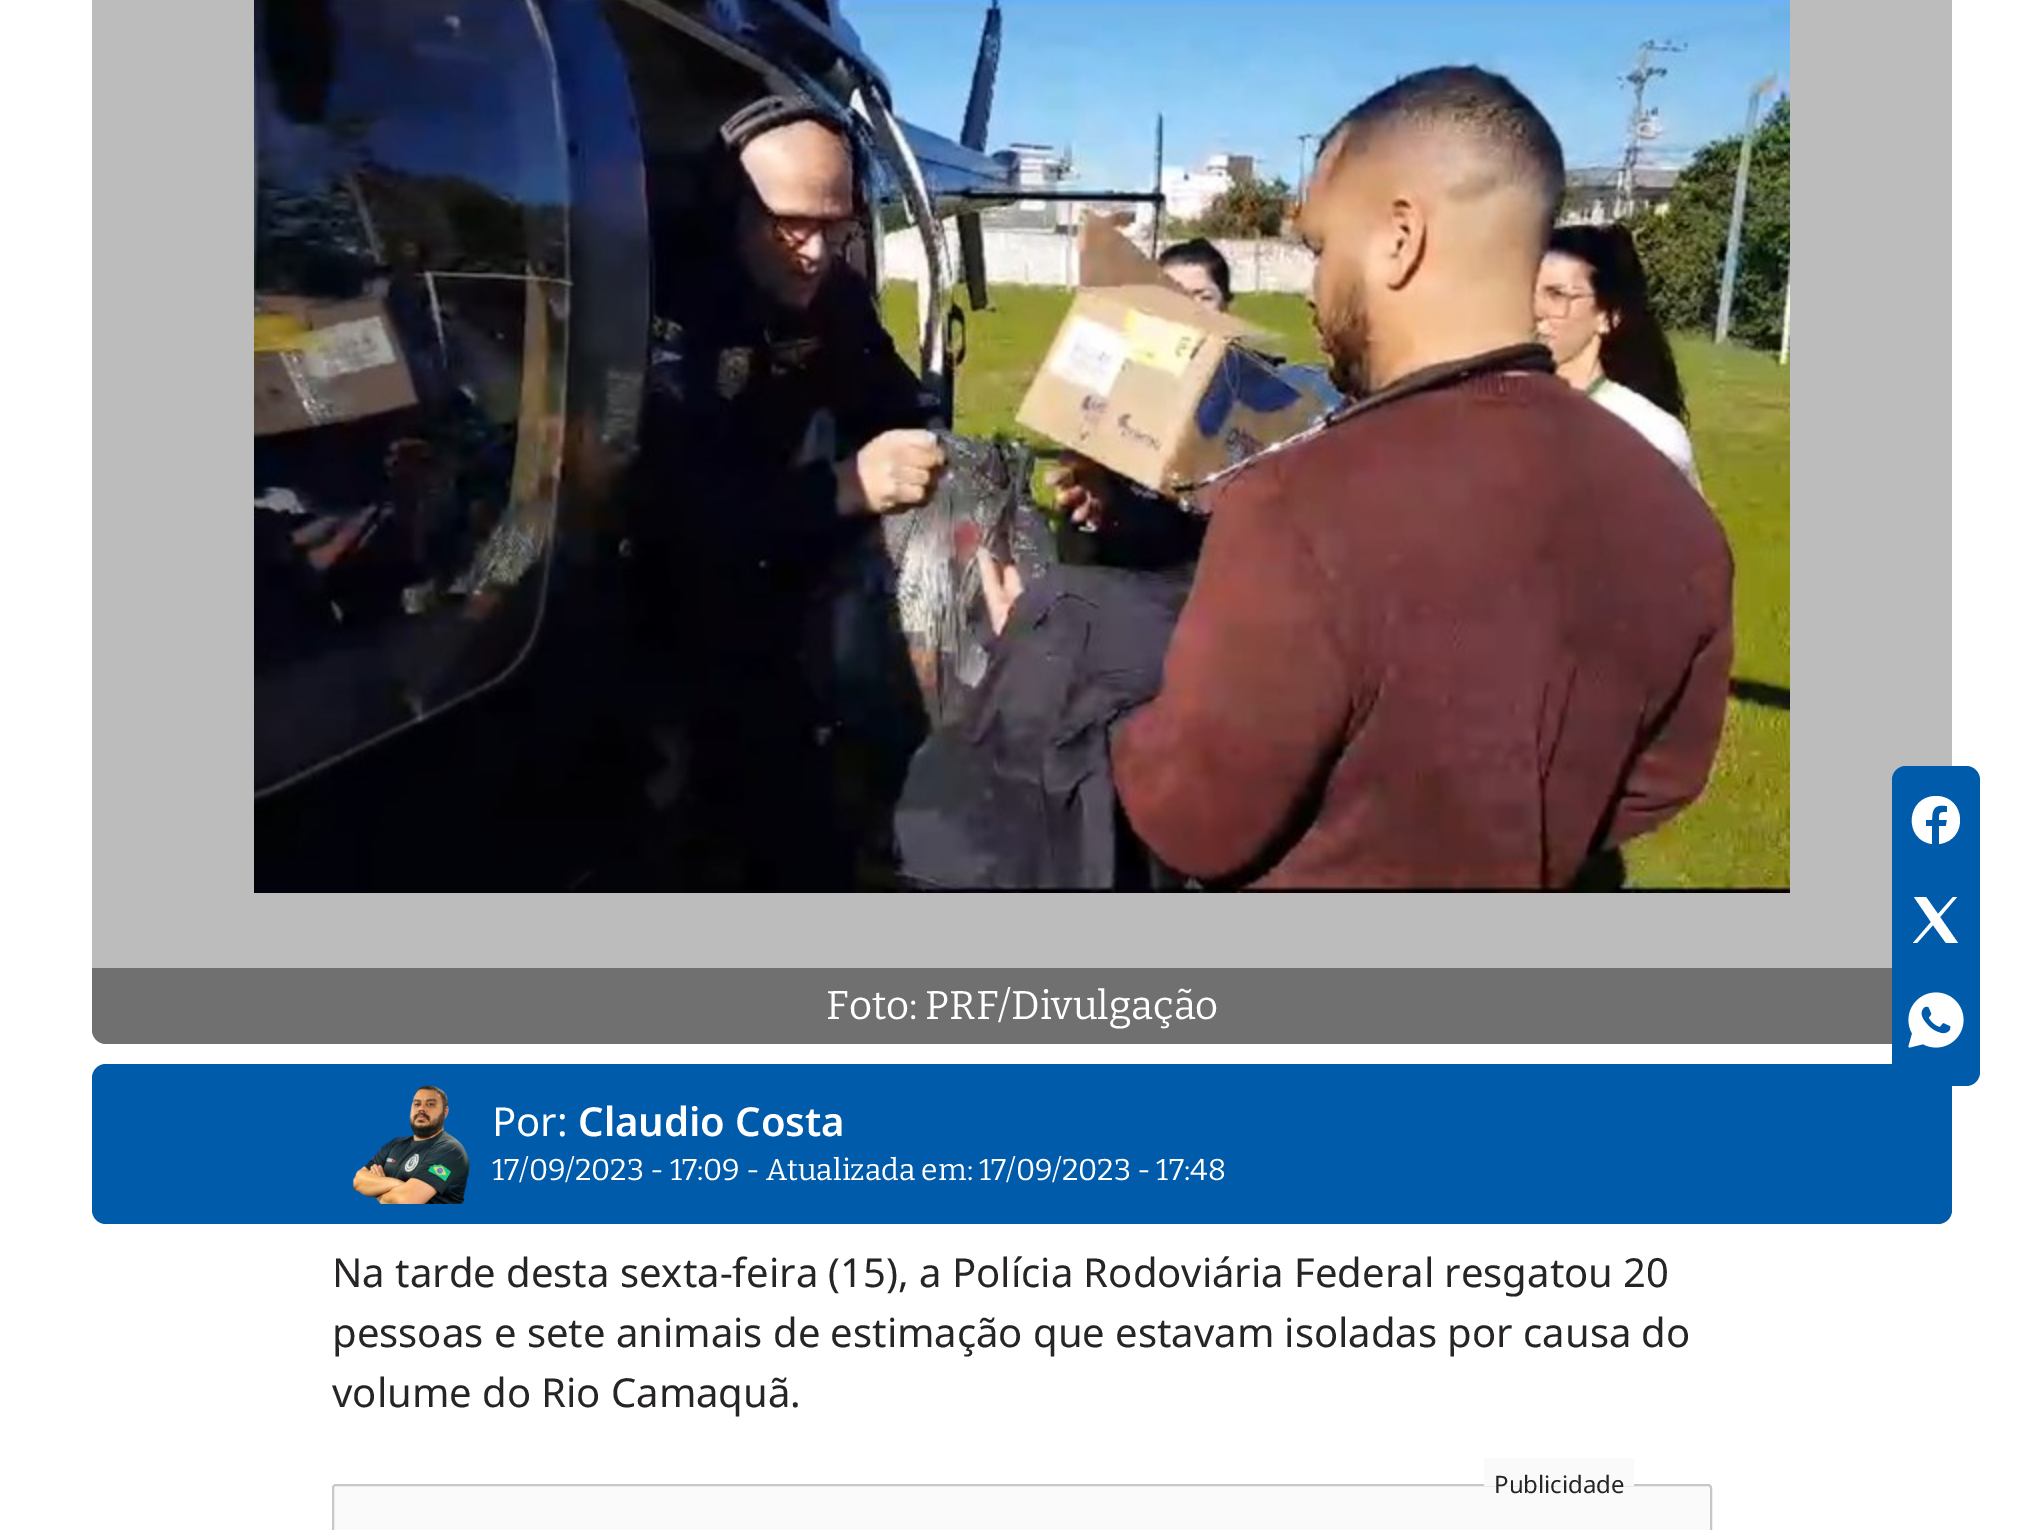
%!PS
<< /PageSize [2043 1530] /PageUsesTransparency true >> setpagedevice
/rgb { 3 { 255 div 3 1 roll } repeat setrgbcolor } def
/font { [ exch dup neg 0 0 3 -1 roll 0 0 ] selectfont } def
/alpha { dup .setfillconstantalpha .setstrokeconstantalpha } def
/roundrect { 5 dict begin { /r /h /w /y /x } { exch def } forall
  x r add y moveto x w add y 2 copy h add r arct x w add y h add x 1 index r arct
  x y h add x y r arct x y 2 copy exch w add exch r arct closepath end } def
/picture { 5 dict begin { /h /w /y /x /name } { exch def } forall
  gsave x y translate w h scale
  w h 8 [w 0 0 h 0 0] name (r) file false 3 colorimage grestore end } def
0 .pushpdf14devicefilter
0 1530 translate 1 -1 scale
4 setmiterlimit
255 255 255 rgb
0 0 2043 1530 rectfill
188 188 188 rgb
92 -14 1860 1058 14 roundrect fill
(img/1.rgb) 254 0 1536 893 picture
0.5 alpha
39 36 37 rgb
92 968 moveto 1952 968 lineto 1952 1030 lineto 1952 1037.5 1945.5 1044 1938 1044 curveto 106 1044 lineto 98.5 1044 92 1037.5 92 1030 curveto closepath fill
1 alpha
0 91 170 rgb
92 1064 1860 160 14 roundrect fill
(img/2.rgb) 352 1085 118 119 picture
1892 766 88 320 14 roundrect fill
255 255 255 rgb
1936 796 moveto 1906 796 1903 840 1932 844 curveto 1932 826 lineto 1926 826 lineto 1926 820 lineto 1932 820 lineto 1932 808 1935 804 1947 806 curveto 1947 812 lineto 1939 812 1939 813 1939 820 curveto 1947 820 lineto 1946 826 lineto 1939 826 lineto 1939 844 lineto 1969 840 1966 796 1936 796 curveto closepath fill
1914 897 moveto 1931 922 lineto 1913 943 lineto 1917 943 lineto 1933 925 lineto 1946 943 lineto 1958 943 lineto 1940 917 lineto 1957 897 lineto 1953 897 lineto 1938 914 lineto 1926 897 lineto closepath fill
(img/3.rgb) 1908 992 56 56 picture
250 250 250 rgb
333 1485 1378 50 3 roundrect gsave fill grestore
199 199 199 rgb
2 setlinewidth
stroke
250 250 250 rgb
1484 1458 150 28 rectfill
/Bitter-Regular 40 font
255 255 255 rgb
826 1019 moveto (Foto: PRF/Divulgação) show
/NotoSans-Regular 40 font
492 1136 moveto (Por:) show
/NotoSans-SemiBold 40 font
578 1136 moveto (Claudio Costa) show
/Bitter-Regular 30 font
492 1180 moveto (17/09/2023 - 17:09 - Atualizada em: 17/09/2023 - 17:48) show
/NotoSans-Regular 40 font
39 36 37 rgb
[
  [(Na tarde desta sexta-feira \(15\), a Polícia Rodoviária Federal resgatou 20) 332 1287]
  [(pessoas e sete animais de estimação que estavam isoladas por causa do) 332 1347]
  [(volume do Rio Camaquã.) 332 1407]
] { aload pop moveto show } forall
/NotoSans-Regular 24 font
1494 1493 moveto (Publicidade) show
.poppdf14devicefilter showpage
